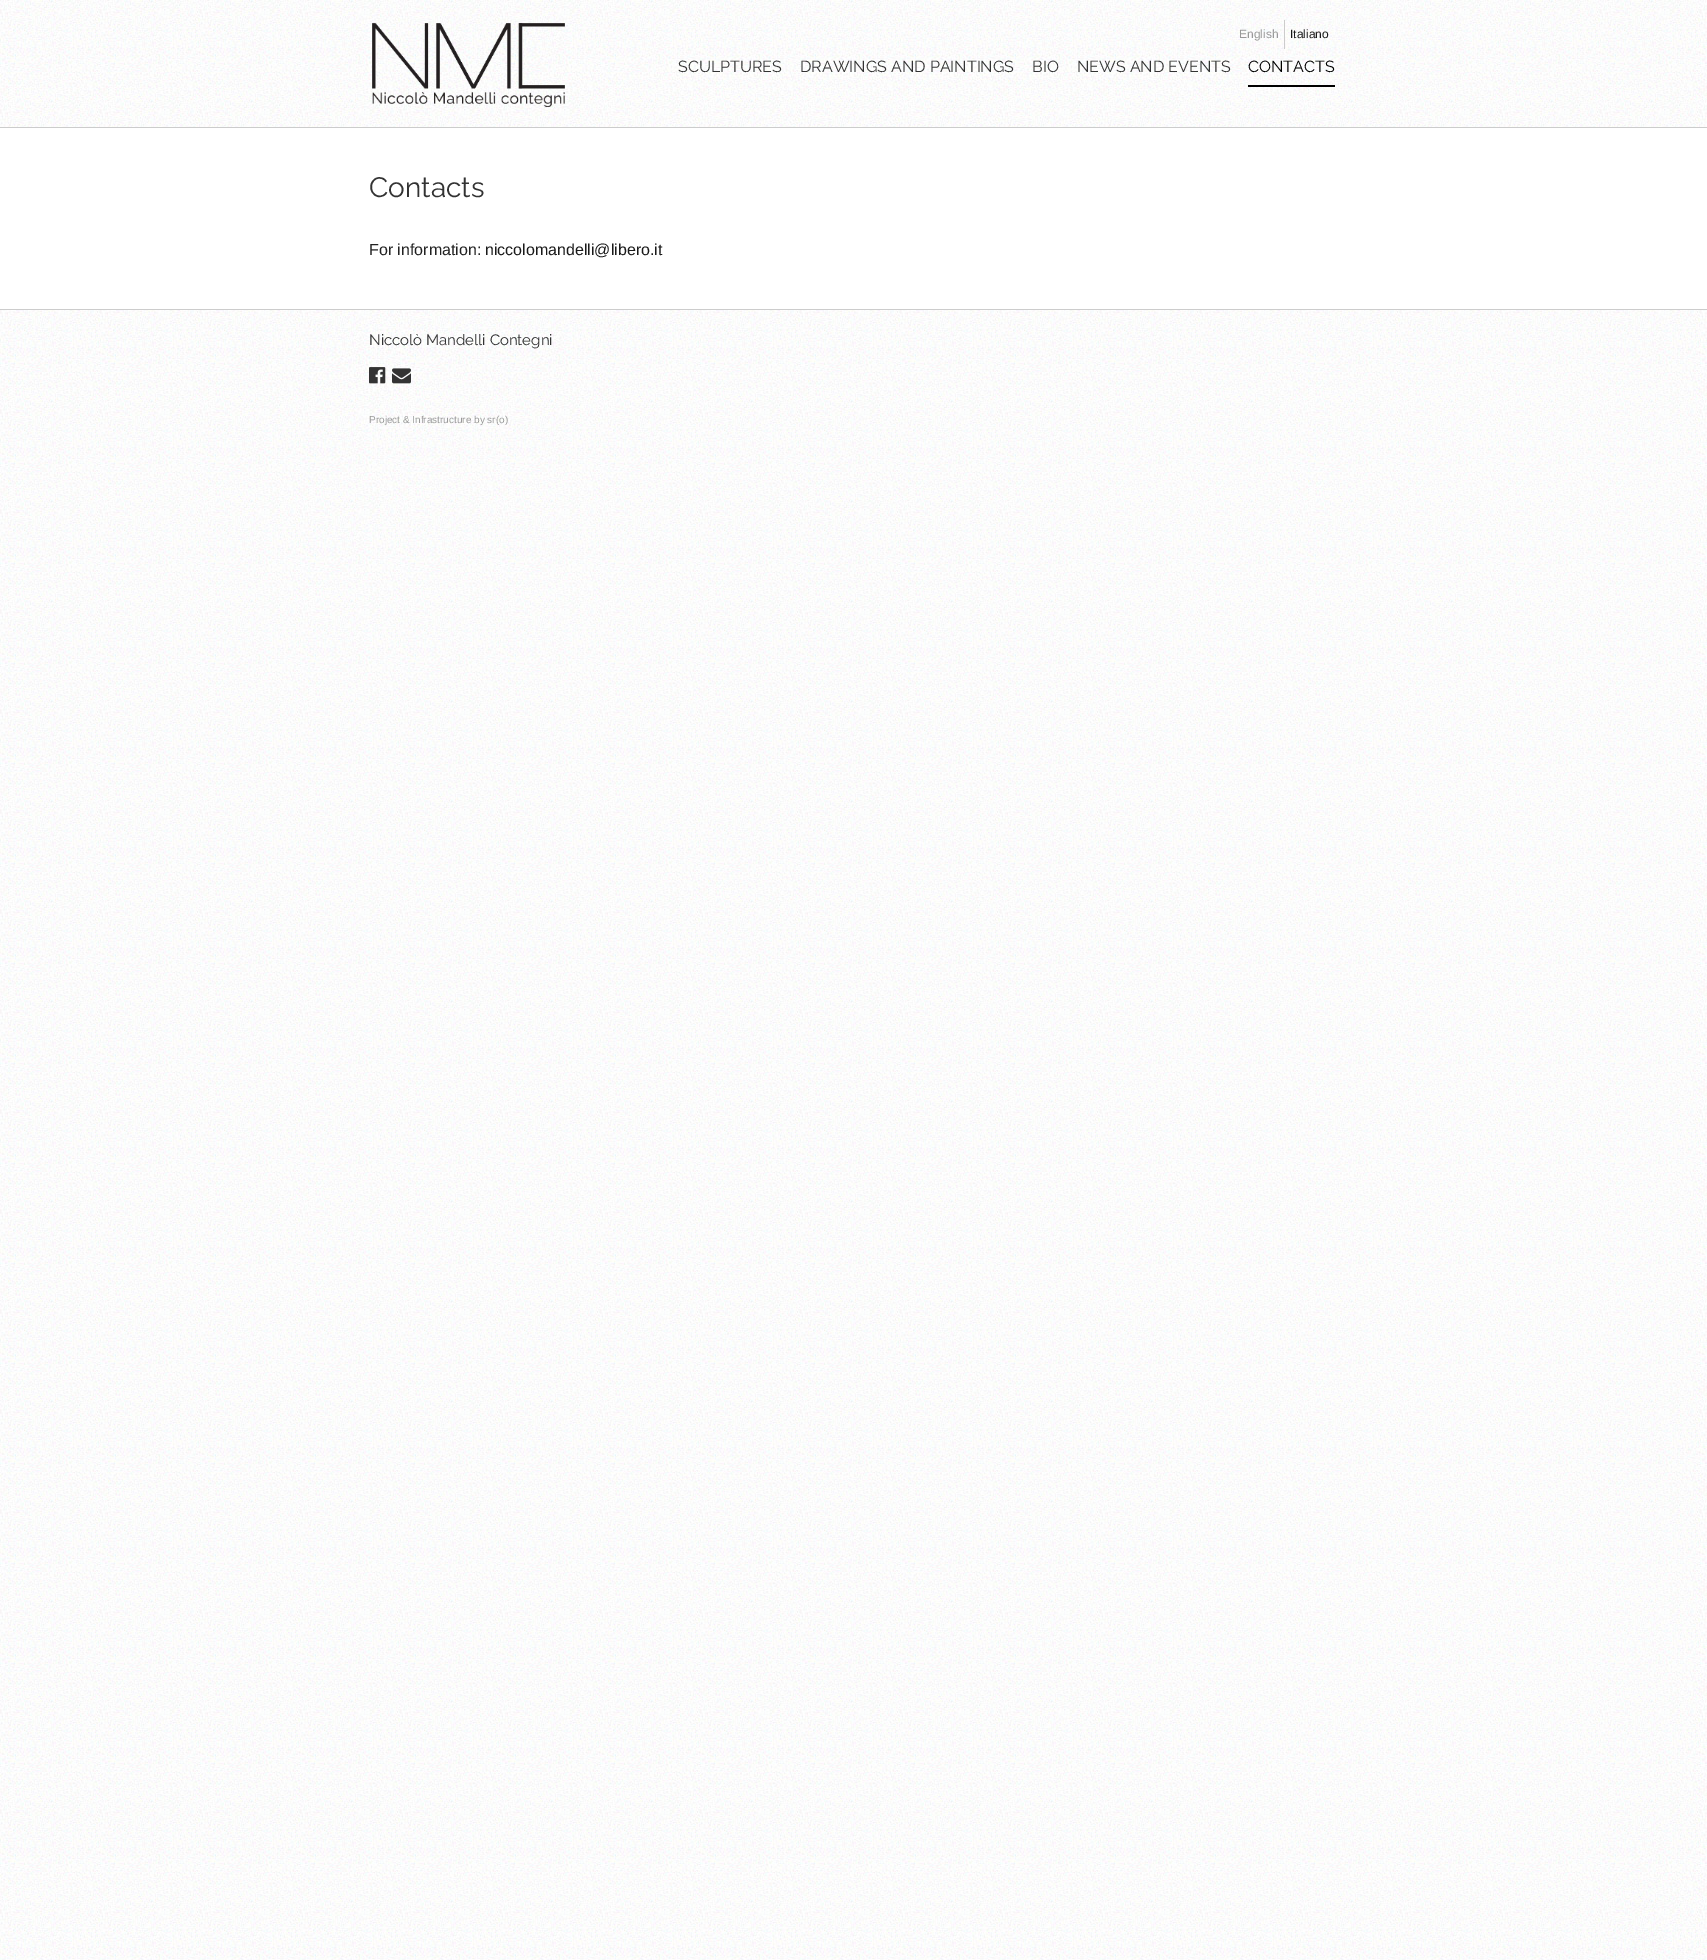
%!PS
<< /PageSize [1707 1960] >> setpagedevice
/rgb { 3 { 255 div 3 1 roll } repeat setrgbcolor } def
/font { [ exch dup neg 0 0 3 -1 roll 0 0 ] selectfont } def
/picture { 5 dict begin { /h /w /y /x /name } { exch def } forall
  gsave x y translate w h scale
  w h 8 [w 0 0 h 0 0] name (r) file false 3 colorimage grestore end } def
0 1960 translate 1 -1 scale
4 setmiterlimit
255 255 255 rgb
0 0 1707 1960 rectfill
(img/1.rgb) 0 0 1707 1960 picture
204 204 204 rgb
0 127 1707 1 rectfill
(img/2.rgb) 372 23 193 84 picture
[
  [1284 20 1 29 204 204 204]
  [1248 85 87 2 0 0 0]
  [0 128 1707 181 255 255 255]
  [0 309 1707 1 204 204 204]
] { aload pop rgb rectfill } forall
(img/3.rgb) 369 367 17 17 picture
(img/4.rgb) 392 368 19 16 picture
/LiberationSans-Regular 12 font
153 153 153 rgb
1239 38 moveto (English) show
26 26 26 rgb
1290 38 moveto (Italiano) show
/Raleway-Thin 16 font
51 51 51 rgb
[
  [(SCULPTURES) 678 72]
  [(DRAWINGS AND PAINTINGS) 800 72]
  [(BIO) 1032 72]
  [(NEWS AND EVENTS) 1077 72]
] { aload pop moveto show } forall
0 0 0 rgb
1248 72 moveto (CONTACTS) show
/Raleway-Thin 28 font
51 51 51 rgb
369 197 moveto (Contacts) show
/LiberationSans-Regular 16 font
34 34 34 rgb
369 255 moveto (For information:) show
26 26 26 rgb
485 255 moveto (niccolomandelli@libero.it) show
/Raleway-Thin 15 font
51 51 51 rgb
369 345 moveto (Niccolò Mandelli Contegni) show
/LiberationSans-Regular 10 font
153 153 153 rgb
369 423 moveto (Project & Infrastructure by sr\(o\)) show
showpage
